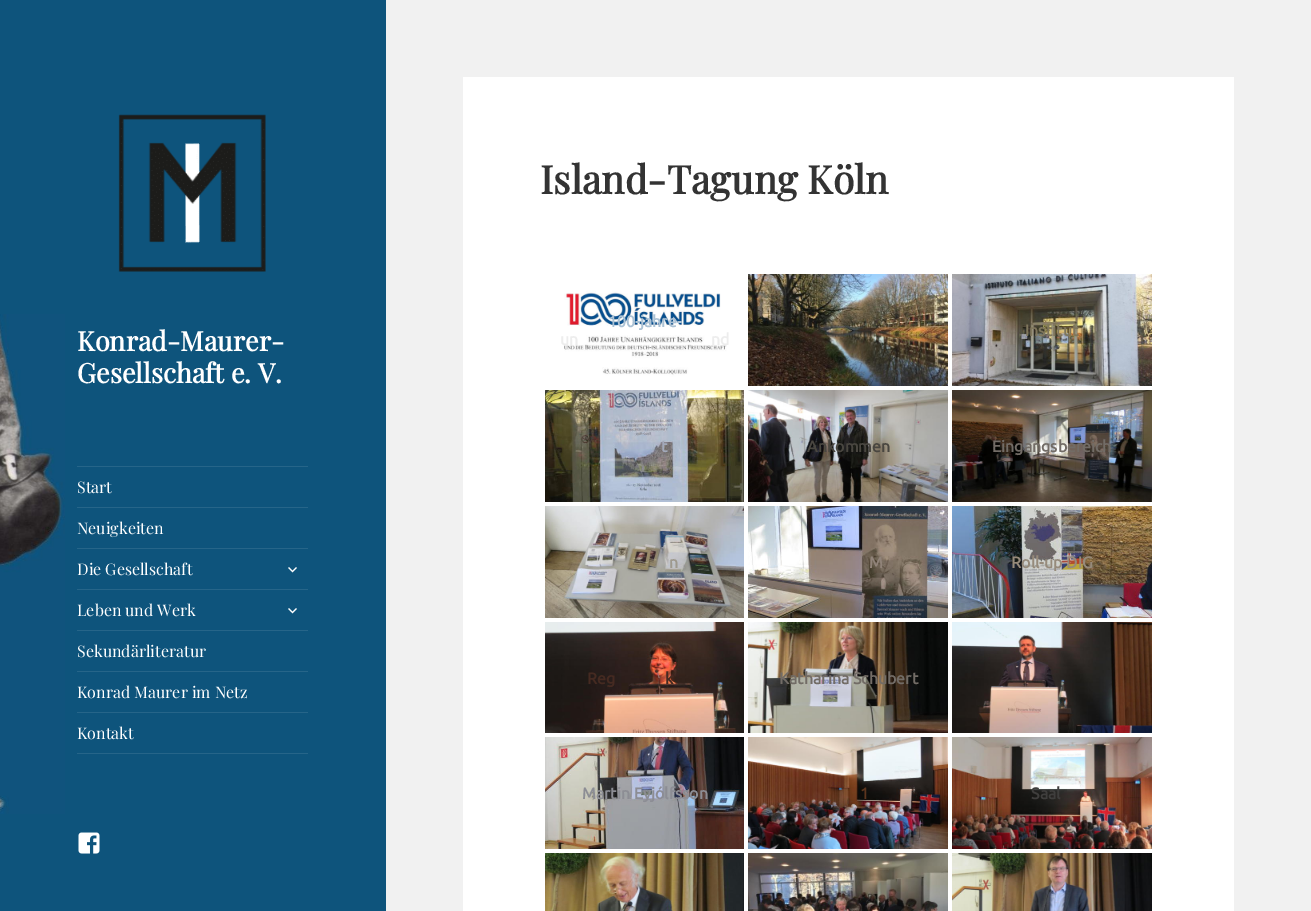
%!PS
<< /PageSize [1311 911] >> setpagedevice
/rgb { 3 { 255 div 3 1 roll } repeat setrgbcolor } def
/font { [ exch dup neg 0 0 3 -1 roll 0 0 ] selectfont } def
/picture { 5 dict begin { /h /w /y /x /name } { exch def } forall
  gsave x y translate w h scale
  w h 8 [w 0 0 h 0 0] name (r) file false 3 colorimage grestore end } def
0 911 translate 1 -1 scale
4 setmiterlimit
241 241 241 rgb
0 0 1311 911 rectfill
14 84 124 rgb
0 0 386 911 rectfill
(img/1.rgb) 0 314 65 500 picture
(img/2.rgb) 118 114 148 158 picture
[
  [77 466 231 1 38 101 137]
  [77 753 231 1 38 101 137]
  [77 507 231 1 38 101 137]
  [77 548 231 1 38 101 137]
] { aload pop rgb rectfill } forall
(img/3.rgb) 288 567 9 6 picture
77 589 231 1 rectfill
(img/3.rgb) 288 608 9 6 picture
[
  [77 630 231 1 38 101 137]
  [77 671 231 1 38 101 137]
  [77 712 231 1 38 101 137]
] { aload pop rgb rectfill } forall
(img/4.rgb) 78 832 22 22 picture
255 255 255 rgb
463 77 771 834 rectfill
(img/5.rgb) 545 274 199 112 picture
(img/6.rgb) 748 274 200 112 picture
(img/7.rgb) 952 274 200 112 picture
(img/8.rgb) 545 390 199 112 picture
(img/9.rgb) 748 390 200 112 picture
(img/10.rgb) 952 390 200 112 picture
(img/11.rgb) 545 506 199 112 picture
(img/12.rgb) 748 506 200 112 picture
(img/13.rgb) 952 506 200 112 picture
(img/14.rgb) 545 622 199 111 picture
(img/15.rgb) 748 622 200 111 picture
(img/16.rgb) 952 622 200 111 picture
(img/17.rgb) 545 737 199 112 picture
(img/18.rgb) 748 737 200 112 picture
(img/19.rgb) 952 737 200 112 picture
(img/20.rgb) 545 853 199 58 picture
(img/21.rgb) 748 853 200 58 picture
(img/22.rgb) 952 853 200 58 picture
/PlayfairDisplay-Bold 27 font
77 351 moveto (Konrad-Maurer-) show
77 383 moveto (Gesellschaft e. V.) show
/PlayfairDisplay-Regular 16 font
[
  [(Start) 77 493]
  [(Neuigkeiten) 77 534]
  [(Die Gesellschaft) 77 575]
  [(Leben und Werk) 77 616]
  [(Sekundärliteratur) 77 657]
  [(Konrad Maurer im Netz) 77 698]
  [(Kontakt) 77 739]
] { aload pop moveto show } forall
/PlayfairDisplay-Bold 39 font
51 51 51 rgb
540 194 moveto (Island-Tagung Köln) show
/Ubuntu-Bold 16 font
171 194 213 rgb
608 327 moveto (100-jahre-) show
237 237 237 rgb
560 345 moveto (un) show
711 345 moveto (nd) show
127 118 92 rgb
1025 336 moveto (Institut) show
162 169 186 rgb
661 452 moveto (t) show
73 70 64 rgb
807 452 moveto (Ankommen) show
114 108 102 rgb
992 452 moveto (Eingangsbereich) show
158 153 141 rgb
669 568 moveto (n) show
144 131 121 rgb
869 568 moveto (M) show
150 138 123 rgb
1011 568 moveto (Roll-up DIG) show
69 42 33 rgb
587 684 moveto (Reg) show
665 684 moveto (k) show
114 108 102 rgb
779 684 moveto (Katharina Schubert) show
140 141 148 rgb
582 799 moveto (Martin Eyjólfsson) show
93 53 30 rgb
860 799 moveto (1) show
63 62 61 rgb
1031 799 moveto (Saal) show
showpage
